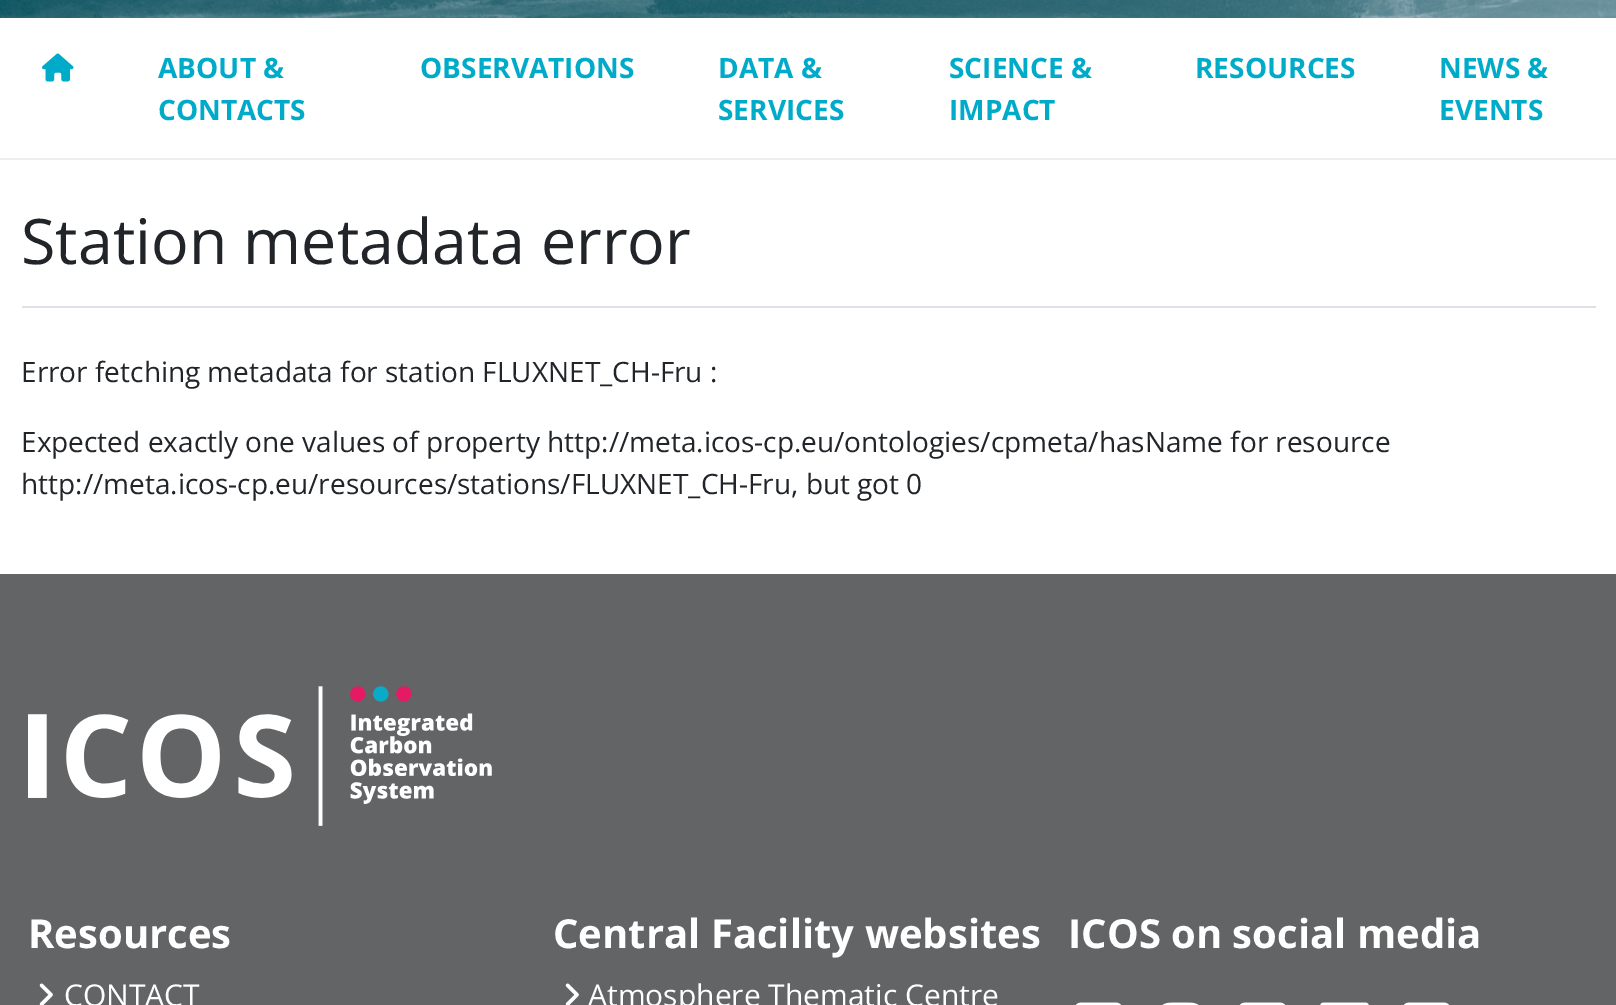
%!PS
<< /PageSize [1616 1005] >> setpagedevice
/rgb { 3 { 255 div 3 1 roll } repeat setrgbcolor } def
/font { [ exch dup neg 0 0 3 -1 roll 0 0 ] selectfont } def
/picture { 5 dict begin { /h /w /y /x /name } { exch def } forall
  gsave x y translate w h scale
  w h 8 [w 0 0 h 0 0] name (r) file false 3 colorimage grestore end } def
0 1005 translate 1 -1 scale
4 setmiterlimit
99 100 102 rgb
0 0 1616 1005 rectfill
(img/1.rgb) 0 0 1616 18 picture
255 255 255 rgb
0 18 1616 140 rectfill
238 238 238 rgb
0 158 1616 2 rectfill
(img/2.rgb) 42 53 32 29 picture
255 255 255 rgb
0 160 1616 414 rectfill
222 226 230 rgb
22 306 1574 2 rectfill
(img/3.rgb) 28 686 464 140 picture
(img/4.rgb) 39 983 14 22 picture
(img/4.rgb) 565 983 14 22 picture
(img/5.rgb) 1075 1002 47 3 picture
(img/6.rgb) 1162 1002 37 3 picture
(img/5.rgb) 1239 1002 47 3 picture
(img/7.rgb) 1320 1002 49 3 picture
(img/5.rgb) 1403 1002 47 3 picture
/OpenSans-Bold 28 font
0 171 201 rgb
[
  [(ABOUT &) 158 78]
  [(CONTACTS) 158 120]
  [(OBSERVATIONS) 420 78]
  [(DATA &) 718 78]
  [(SERVICES) 718 120]
  [(SCIENCE &) 949 78]
  [(IMPACT) 949 120]
  [(RESOURCES) 1195 78]
  [(NEWS &) 1439 78]
  [(EVENTS) 1439 120]
] { aload pop moveto show } forall
/OpenSans-Regular 62.75 font
33 37 41 rgb
21 264 moveto (Station metadata error) show
/OpenSans-Regular 28 font
[
  [(Error fetching metadata for station FLUXNET_CH-Fru :) 21 382]
  [(Expected exactly one values of property http://meta.icos-cp.eu/ontologies/cpmeta/hasName for resource) 21 452]
  [(http://meta.icos-cp.eu/resources/stations/FLUXNET_CH-Fru, but got 0) 21 494]
] { aload pop moveto show } forall
/OpenSans-Bold 40 font
255 255 255 rgb
28 948 moveto (Resources) show
/OpenSans-Regular 30 font
64 1006 moveto (CONTACT) show
/OpenSans-Bold 40 font
553 948 moveto (Central Facility websites) show
/OpenSans-Regular 30 font
588 1006 moveto (Atmosphere Thematic Centre) show
/OpenSans-Bold 40 font
1068 948 moveto (ICOS on social media) show
showpage
